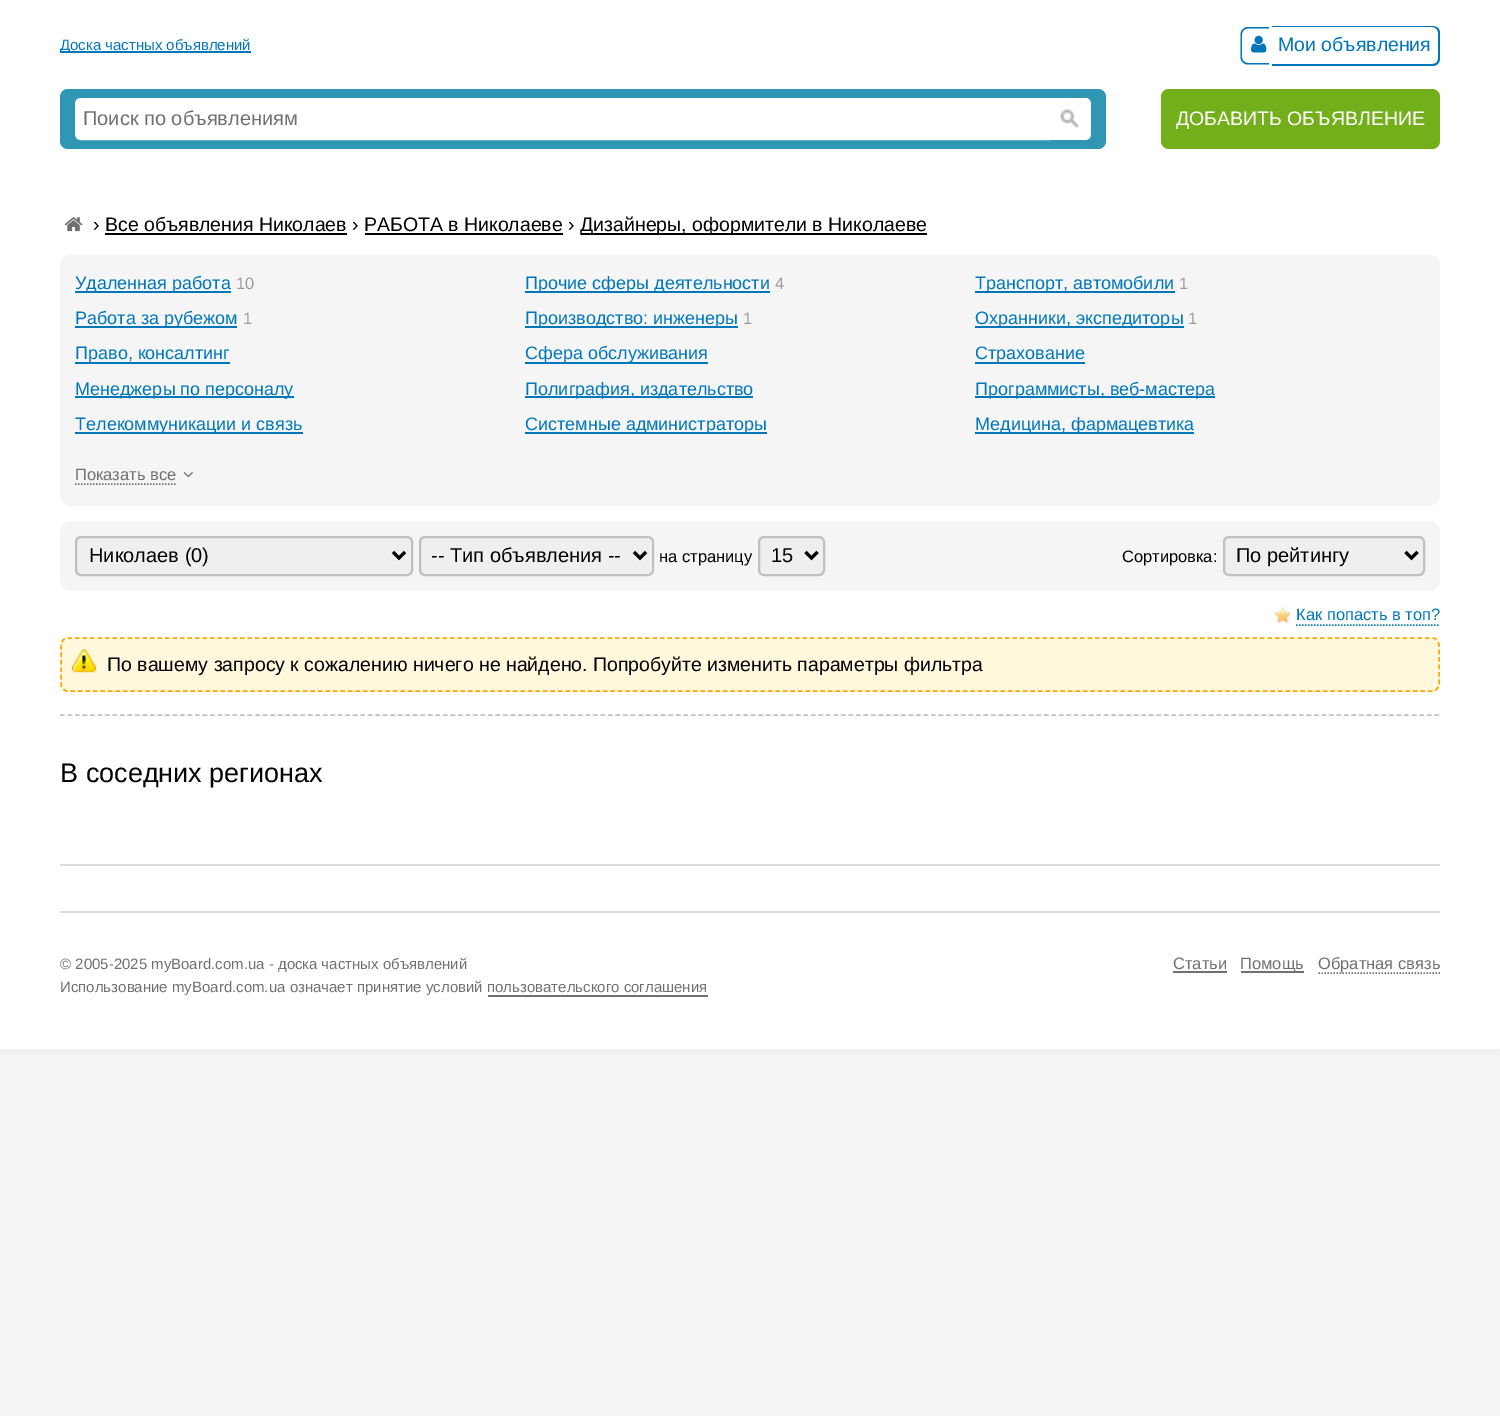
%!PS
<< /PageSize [1500 1416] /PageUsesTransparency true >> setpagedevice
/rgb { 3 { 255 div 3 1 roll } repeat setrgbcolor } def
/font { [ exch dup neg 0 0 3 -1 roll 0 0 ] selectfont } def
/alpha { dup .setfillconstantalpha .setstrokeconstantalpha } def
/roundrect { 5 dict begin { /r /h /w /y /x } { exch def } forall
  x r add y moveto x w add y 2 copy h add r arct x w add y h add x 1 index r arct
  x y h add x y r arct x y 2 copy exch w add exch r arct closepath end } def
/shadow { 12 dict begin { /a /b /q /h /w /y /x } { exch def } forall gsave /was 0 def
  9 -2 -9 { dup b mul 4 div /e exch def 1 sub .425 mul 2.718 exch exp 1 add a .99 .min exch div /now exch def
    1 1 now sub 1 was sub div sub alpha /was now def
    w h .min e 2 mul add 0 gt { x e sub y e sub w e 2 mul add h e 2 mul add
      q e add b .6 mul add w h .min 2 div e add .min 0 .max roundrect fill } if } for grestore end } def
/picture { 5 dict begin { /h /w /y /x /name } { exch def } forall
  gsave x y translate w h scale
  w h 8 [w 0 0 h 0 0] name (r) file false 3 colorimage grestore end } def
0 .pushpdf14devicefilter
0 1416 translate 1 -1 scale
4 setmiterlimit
245 245 245 rgb
0 0 1500 1416 rectfill
232 232 232 rgb
0 0 1500 1049 0 7.5 1 shadow
255 255 255 rgb
0 0 1500 1049 rectfill
0 119 187 rgb
60 51 191 2 rectfill
1248 27 moveto 1269 27 lineto 1269 64.5 lineto 1248 64.5 lineto 1244 64.5 1240.5 61 1240.5 57 curveto 1240.5 34.5 lineto 1240.5 30.5 1244 27 1248 27 curveto closepath 1248 28.5 moveto 1269 28.5 lineto 1269 63 lineto 1248 63 lineto 1244.5 63 1242 60.5 1242 57 curveto 1242 34.5 lineto 1242 31 1244.5 28.5 1248 28.5 curveto closepath eofill
1272 26 moveto 1432 26 lineto 1437 26 1440 29 1440 33 curveto 1440 58 lineto 1440 63 1437 66 1432 66 curveto 1272 66 lineto closepath 1272 27 moveto 1432 27 lineto 1436 27 1438 30 1438 33 curveto 1438 58 lineto 1438 62 1436 64 1432 64 curveto 1272 64 lineto closepath eofill
(img/1.rgb) 1251 35 16 18 picture
47 150 180 rgb
60 89 1046 60 8 roundrect fill
255 255 255 rgb
81 99 moveto 1049 99 lineto 1049 139 lineto 81 139 lineto 78 139 76 137 76 134 curveto 76 104 lineto 76 101 78 99 81 99 curveto closepath gsave fill grestore
2 setlinewidth
stroke
1050 98 moveto 1085 98 lineto 1088.5 98 1091 100.5 1091 104 curveto 1091 134 lineto 1091 137.5 1088.5 140 1085 140 curveto 1050 140 lineto closepath fill
(img/2.rgb) 1060 109 19 19 picture
1050 98 moveto 1084 98 lineto 1088 98 1090 100 1090 104 curveto 1090 134 lineto 1090 137 1088 140 1084 140 curveto 1050 140 lineto closepath 1050 99 moveto 1084 99 lineto 1087 99 1089 101 1089 104 curveto 1089 134 lineto 1089 136 1087 138 1084 138 curveto 1050 138 lineto closepath eofill
115 175 26 rgb
1161 89 279 60 8 roundrect fill
(img/3.rgb) 64 217 19 15 picture
[
  [581 233 346 2 0 0 0]
  [105 233 242 2 0 0 0]
  [365 233 198 2 0 0 0]
] { aload pop rgb rectfill } forall
245 245 245 rgb
60 255 1380 251 11 roundrect fill
[
  [75 291 156 2 0 119 187]
  [525 291 245 2 0 119 187]
  [975 291 200 2 0 119 187]
  [75 326 162 2 0 119 187]
  [525 326 213 2 0 119 187]
  [975 326 209 2 0 119 187]
  [75 362 155 2 0 119 187]
  [525 362 183 2 0 119 187]
  [975 362 110 2 0 119 187]
  [75 396 219 2 0 119 187]
  [525 396 228 2 0 119 187]
  [975 396 240 2 0 119 187]
  [75 432 228 2 0 119 187]
  [525 432 242 2 0 119 187]
  [975 432 219 2 0 119 187]
] { aload pop rgb rectfill } forall
112 112 112 rgb
1.5 setlinewidth
[1.5 1.5] 0 setdash
75 484 moveto 175.5 484 lineto stroke
(img/4.rgb) 183 472 10 6 picture
245 245 245 rgb
60 521 1380 70 11 roundrect fill
239 239 239 rgb
76 537 336 38 5 roundrect gsave fill grestore
192 192 192 rgb
2 setlinewidth
[] 0 setdash
stroke
0 0 0 rgb
3 setlinewidth
393 552 moveto 399 558 lineto 405 552 lineto stroke
239 239 239 rgb
420 537 233 38 5 roundrect gsave fill grestore
192 192 192 rgb
2 setlinewidth
stroke
0 0 0 rgb
3 setlinewidth
634 552 moveto 640 558 lineto 646 552 lineto stroke
239 239 239 rgb
759 537 65 38 5 roundrect gsave fill grestore
192 192 192 rgb
2 setlinewidth
stroke
0 0 0 rgb
3 setlinewidth
805.5 552 moveto 811.5 558 lineto 817.5 552 lineto stroke
239 239 239 rgb
1224 537 200 38 5 roundrect gsave fill grestore
192 192 192 rgb
2 setlinewidth
stroke
0 0 0 rgb
3 setlinewidth
1405.5 552 moveto 1411.5 558 lineto 1417.5 552 lineto stroke
(img/5.rgb) 1275 607 15 16 picture
0 119 187 rgb
1.5 setlinewidth
[1.5 1.5] 0 setdash
1296 625 moveto 1440 625 lineto stroke
255 248 220 rgb
60 638 1380 54 8 roundrect fill
(img/6.rgb) 72 649 24 24 picture
255 165 0 rgb
[4.5 3] 0 setdash
67.5 638 moveto 1432.5 638 lineto 1436 638 1439 641.5 1439 645 curveto 1439 684 lineto 1439 687.5 1436 691 1432.5 691 curveto 67.5 691 lineto 64 691 61 687.5 61 684 curveto 61 645 lineto 61 641.5 64 638 67.5 638 curveto closepath stroke
192 192 192 rgb
[4.5 3.01] 0 setdash
60 715 moveto 1440 715 lineto stroke
[
  [60 864 1380 2 221 221 221]
  [60 911 1380 2 221 221 221]
  [488 995 220 2 112 112 112]
  [1173 971 54 2 112 112 112]
  [1241 971 63 2 112 112 112]
] { aload pop rgb rectfill } forall
[1.5 1.5] 0 setdash
1318.5 973 moveto 1440 973 lineto stroke
/LiberationSans-Regular 15 font
0 119 187 rgb
60 50 moveto (Доска частных объявлений) show
/LiberationSans-Regular 19.5 font
1278 51 moveto (Мои объявления) show
/LiberationSans-Regular 20 font
112 112 112 rgb
83 125 moveto (Поиск по объявлениям) show
/LiberationSans-Regular 19.5 font
255 255 255 rgb
1176 125 moveto (ДОБАВИТЬ ОБЪЯВЛЕНИЕ) show
0 0 0 rgb
93 231 moveto (› Все объявления Николаев › РАБОТА в Николаеве ›) show
580 231 moveto (Дизайнеры, оформители в Николаеве) show
/LiberationSans-Regular 18 font
0 119 187 rgb
75 289 moveto (Удаленная работа) show
/LiberationSans-Regular 16.5 font
153 153 153 rgb
236 289 moveto (10) show
/LiberationSans-Regular 18 font
0 119 187 rgb
525 289 moveto (Прочие сферы деятельности) show
/LiberationSans-Regular 16.5 font
153 153 153 rgb
775 289 moveto (4) show
/LiberationSans-Regular 18 font
0 119 187 rgb
975 289 moveto (Транспорт, автомобили) show
/LiberationSans-Regular 16.5 font
153 153 153 rgb
1179 289 moveto (1) show
/LiberationSans-Regular 18 font
0 119 187 rgb
75 324 moveto (Работа за рубежом) show
/LiberationSans-Regular 16.5 font
153 153 153 rgb
243 324 moveto (1) show
/LiberationSans-Regular 18 font
0 119 187 rgb
525 324 moveto (Производство: инженеры) show
/LiberationSans-Regular 16.5 font
153 153 153 rgb
743 324 moveto (1) show
/LiberationSans-Regular 18 font
0 119 187 rgb
975 324 moveto (Охранники, экспедиторы) show
/LiberationSans-Regular 16.5 font
153 153 153 rgb
1188 324 moveto (1) show
/LiberationSans-Regular 18 font
0 119 187 rgb
[
  [(Право, консалтинг) 75 359]
  [(Сфера обслуживания) 525 359]
  [(Страхование) 975 359]
  [(Менеджеры по персоналу) 75 395]
  [(Полиграфия, издательство) 525 395]
  [(Программисты, веб-мастера) 975 395]
  [(Телекоммуникации и связь) 75 430]
  [(Системные администраторы) 525 430]
  [(Медицина, фармацевтика) 975 430]
] { aload pop moveto show } forall
/LiberationSans-Regular 16.5 font
112 112 112 rgb
75 480 moveto (Показать все) show
/LiberationSans-Regular 20 font
0 0 0 rgb
89 562 moveto (Николаев \(0\)) show
431 562 moveto (-- Тип объявления --) show
/LiberationSans-Regular 16.5 font
659 562 moveto (на страницу) show
/LiberationSans-Regular 20 font
771 562 moveto (15) show
/LiberationSans-Regular 16.5 font
1122 562 moveto (Сортировка:) show
/LiberationSans-Regular 20 font
1236 562 moveto (По рейтингу) show
/LiberationSans-Regular 16.5 font
0 119 187 rgb
1296 620 moveto (Как попасть в топ?) show
/LiberationSans-Regular 19.5 font
0 0 0 rgb
107 671 moveto (По вашему запросу к сожалению ничего не найдено. Попробуйте изменить параметры фильтра) show
/LiberationSans-Regular 27 font
60 782 moveto (В соседних регионах) show
/LiberationSans-Regular 15 font
112 112 112 rgb
60 969 moveto (© 2005-2025 myBoard.com.ua - доска частных объявлений) show
60 992 moveto (Использование myBoard.com.ua означает принятие условий пользовательского соглашения) show
/LiberationSans-Regular 16.5 font
[
  [(Статьи) 1173 969]
  [(Помощь) 1240 969]
  [(Обратная связь) 1318 969]
] { aload pop moveto show } forall
.poppdf14devicefilter showpage
